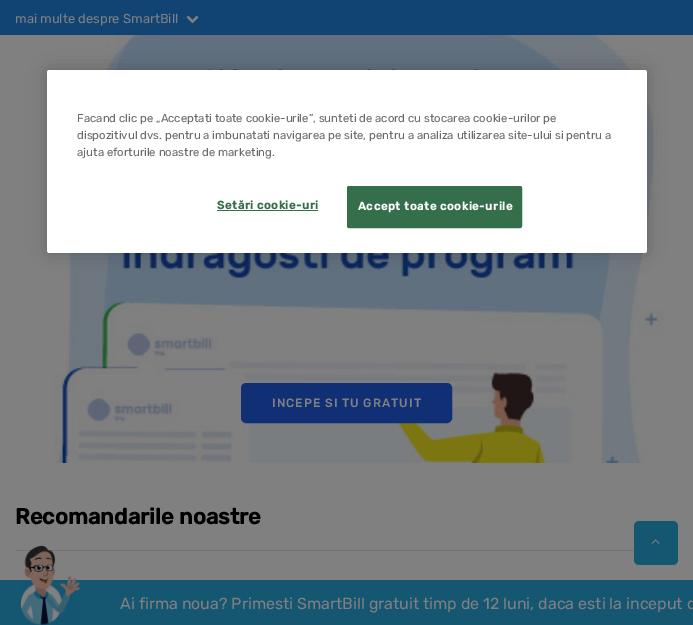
%!PS
<< /PageSize [693 625] /PageUsesTransparency true >> setpagedevice
/rgb { 3 { 255 div 3 1 roll } repeat setrgbcolor } def
/font { [ exch dup neg 0 0 3 -1 roll 0 0 ] selectfont } def
/alpha { dup .setfillconstantalpha .setstrokeconstantalpha } def
/roundrect { 5 dict begin { /r /h /w /y /x } { exch def } forall
  x r add y moveto x w add y 2 copy h add r arct x w add y h add x 1 index r arct
  x y h add x y r arct x y 2 copy exch w add exch r arct closepath end } def
/shadow { 12 dict begin { /a /b /q /h /w /y /x } { exch def } forall gsave /was 0 def
  9 -2 -9 { dup b mul 4 div /e exch def 1 sub .425 mul 2.718 exch exp 1 add a .99 .min exch div /now exch def
    1 1 now sub 1 was sub div sub alpha /was now def
    w h .min e 2 mul add 0 gt { x e sub y e sub w e 2 mul add h e 2 mul add
      q e add b .6 mul add w h .min 2 div e add .min 0 .max roundrect fill } if } for grestore end } def
/picture { 5 dict begin { /h /w /y /x /name } { exch def } forall
  gsave x y translate w h scale
  w h 8 [w 0 0 h 0 0] name (r) file false 3 colorimage grestore end } def
0 .pushpdf14devicefilter
0 625 translate 1 -1 scale
4 setmiterlimit
128 128 128 rgb
0 0 693 625 rectfill
18 68 115 rgb
0 0 693 35 rectfill
(img/1.rgb) 186 15 13 9 picture
(img/2.rgb) 53 35 611 428 picture
0 0 0 rgb
47 70 600 183 2.5 9 0.2 shadow
255 255 255 rgb
47 70 600 183 2.5 roundrect fill
52 110 74 rgb
217 210 101 1 rectfill
347.5 186.5 174 41 1.5 roundrect gsave fill grestore
stroke
16 47 117 rgb
241.5 383.5 210 39 4.5 roundrect gsave fill grestore
stroke
113 114 116 rgb
15 550 619 1 rectfill
21 86 113 rgb
634 521 44 44 5 roundrect fill
(img/3.rgb) 651 539 9 5 picture
0 580 693 45 rectfill
(img/4.rgb) 20 545 60 80 picture
/Rubik-Regular 13 font
128 128 128 rgb
15 23 moveto (mai multe despre SmartBill) show
/Rubik-Regular 11.4 font
105 105 105 rgb
[
  [(Facand clic pe „Acceptati toate cookie-urile”, sunteti de acord cu stocarea cookie-urilor pe) 77 122]
  [(dispozitivul dvs. pentru a imbunatati navigarea pe site, pentru a analiza utilizarea site-ului si pentru a) 77 139]
  [(ajuta eforturile noastre de marketing.) 77 156]
] { aload pop moveto show } forall
/Rubik-Bold 11.4 font
52 110 74 rgb
217 209 moveto 0.6 0 (Setări cookie-uri) ashow
255 255 255 rgb
358 210 moveto 0.6 0 (Accept toate cookie-urile) ashow
/Rubik-Medium 12 font
128 128 128 rgb
272 407 moveto 1 0 (INCEPE SI TU GRATUIT) ashow
/Rubik-Bold 22 font
0 0 0 rgb
15 524 moveto (Recomandarile noastre) show
/Rubik-Regular 16 font
128 128 128 rgb
120 609 moveto (Ai firma noua? Primesti SmartBill gratuit timp de 12 luni, daca esti la inceput d) show
.poppdf14devicefilter showpage
